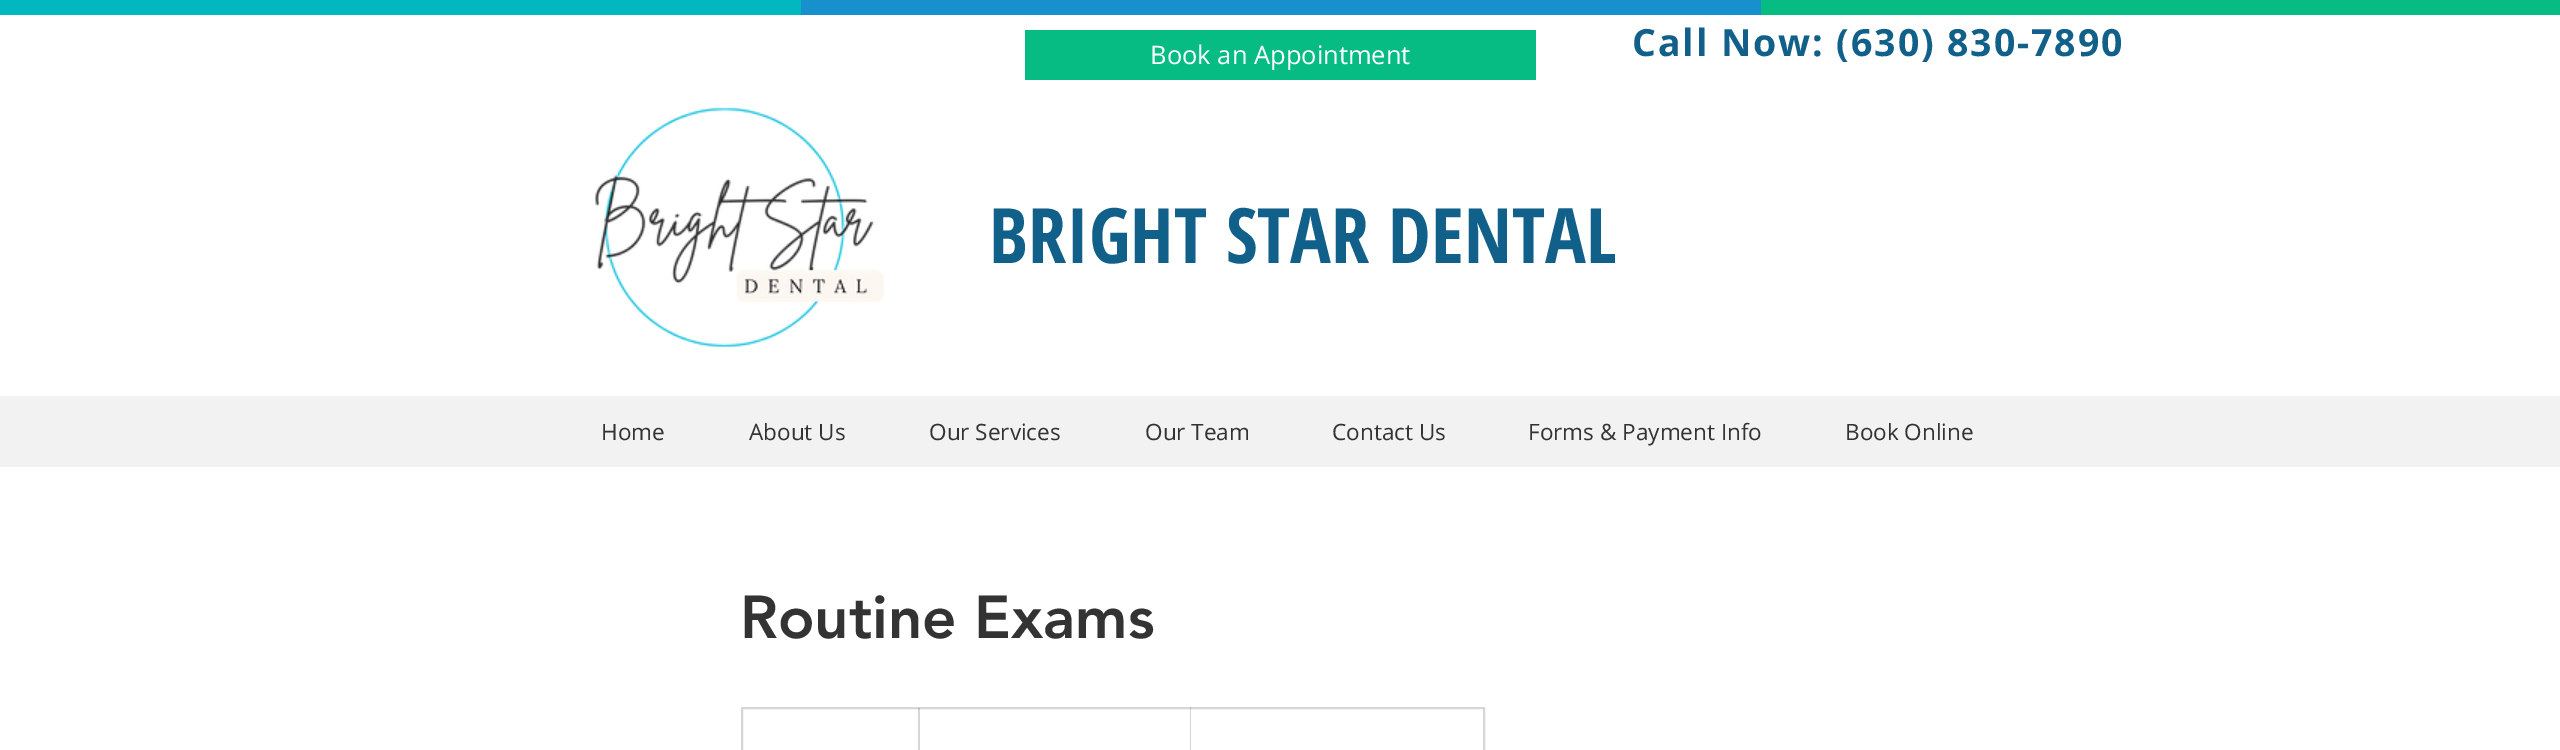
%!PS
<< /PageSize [2560 750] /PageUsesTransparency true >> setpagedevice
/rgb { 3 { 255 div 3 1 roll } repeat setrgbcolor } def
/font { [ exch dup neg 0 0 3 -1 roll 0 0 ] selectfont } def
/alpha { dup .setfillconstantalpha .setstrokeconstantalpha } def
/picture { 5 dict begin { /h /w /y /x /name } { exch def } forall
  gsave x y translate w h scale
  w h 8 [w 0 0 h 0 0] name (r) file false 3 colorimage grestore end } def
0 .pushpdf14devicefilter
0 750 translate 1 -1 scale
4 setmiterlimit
255 255 255 rgb
0 0 2560 750 rectfill
[
  [0 0 801 15 2 184 191]
  [801 0 960 15 25 144 206]
  [1761 0 799 15 7 188 131]
] { aload pop rgb rectfill } forall
(img/1.rgb) 595 107 289 241 picture
242 242 242 rgb
0 396 2560 71 rectfill
7 188 131 rgb
1025 30 511 50 rectfill
214 214 214 rgb
2 setlinewidth
742 708 742 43 rectstroke
gsave
743 708 741 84 rectclip
0.2 alpha
51 51 51 rgb
918 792 moveto 918 706 lineto 920 708 lineto 920 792 lineto closepath fill
grestore
0.2 alpha
51 51 51 rgb
1190 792 moveto 1190 706 lineto 1191 708 lineto 1191 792 lineto closepath fill
/OpenSans-Bold 37.5 font
1 alpha
17 96 137 rgb
1632 56 moveto 1.9 0 (Call Now: \(630\) 830-7890) ashow
/OpenSansCondensed-Bold 76.5 font
989 263 moveto (BRIGHT STAR DENTAL) show
/OpenSans-Regular 22.5 font
51 51 51 rgb
[
  [(Home) 601 440]
  [(About Us) 749 440]
  [(Our Services) 929 440]
  [(Our Team) 1145 440]
  [(Contact Us) 1332 440]
  [(Forms & Payment Info) 1528 440]
  [(Book Online) 1845 440]
] { aload pop moveto show } forall
/OpenSans-Regular 25.5 font
255 255 255 rgb
1150 64 moveto (Book an Appointment) show
/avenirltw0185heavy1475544-Black 60 font
51 51 51 rgb
740 638 moveto (Routine Exams) show
.poppdf14devicefilter showpage
